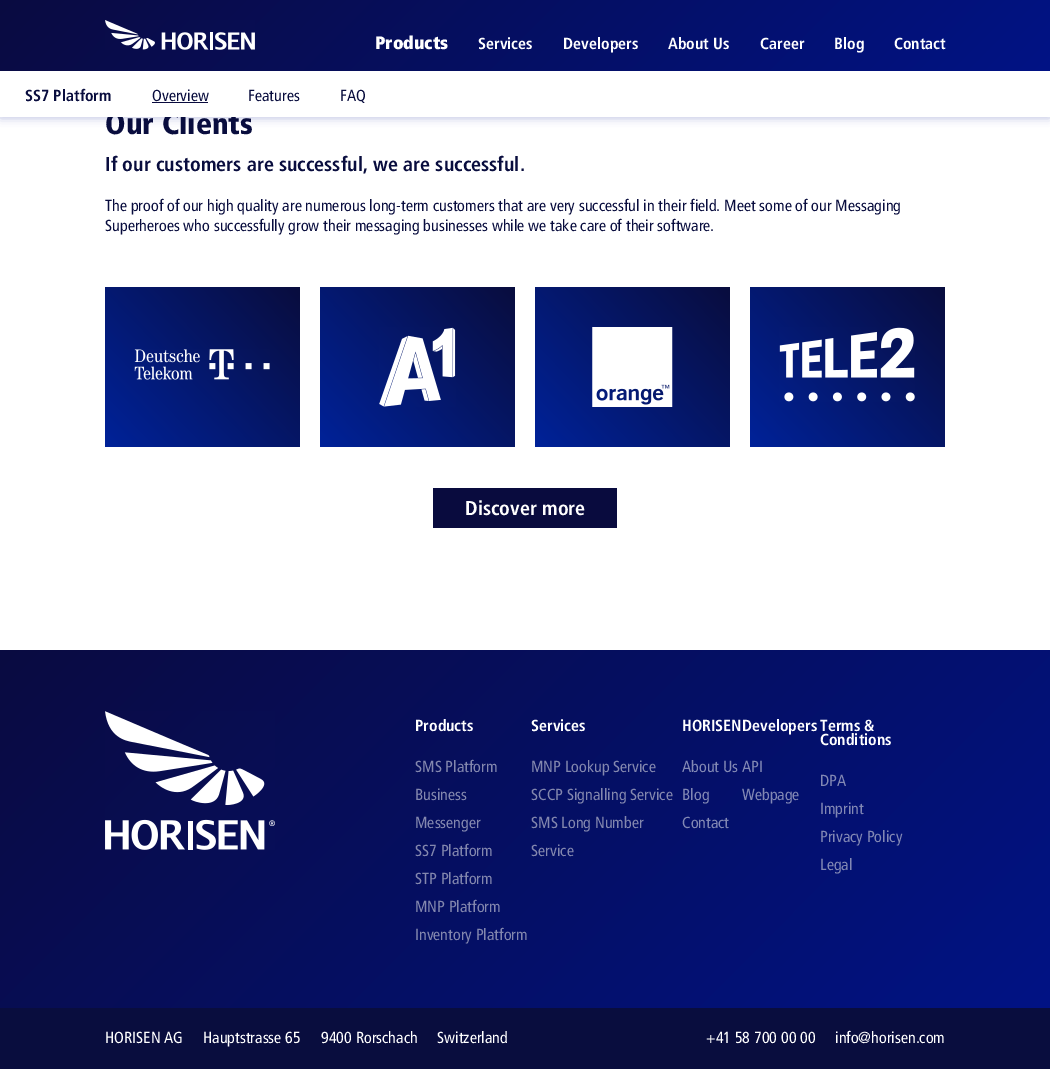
%!PS
<< /PageSize [1050 1069] /PageUsesTransparency true >> setpagedevice
/rgb { 3 { 255 div 3 1 roll } repeat setrgbcolor } def
/font { [ exch dup neg 0 0 3 -1 roll 0 0 ] selectfont } def
/alpha { dup .setfillconstantalpha .setstrokeconstantalpha } def
/roundrect { 5 dict begin { /r /h /w /y /x } { exch def } forall
  x r add y moveto x w add y 2 copy h add r arct x w add y h add x 1 index r arct
  x y h add x y r arct x y 2 copy exch w add exch r arct closepath end } def
/shadow { 12 dict begin { /a /b /q /h /w /y /x } { exch def } forall gsave /was 0 def
  9 -2 -9 { dup b mul 4 div /e exch def 1 sub .425 mul 2.718 exch exp 1 add a .99 .min exch div /now exch def
    1 1 now sub 1 was sub div sub alpha /was now def
    w h .min e 2 mul add 0 gt { x e sub y e sub w e 2 mul add h e 2 mul add
      q e add b .6 mul add w h .min 2 div e add .min 0 .max roundrect fill } if } for grestore end } def
/picture { 5 dict begin { /h /w /y /x /name } { exch def } forall
  gsave x y translate w h scale
  w h 8 [w 0 0 h 0 0] name (r) file false 3 colorimage grestore end } def
0 .pushpdf14devicefilter
0 1069 translate 1 -1 scale
4 setmiterlimit
255 255 255 rgb
0 0 1050 1069 rectfill
0 19 137 rgb
1 72 1048 44 0 5 0.4 shadow
gsave 0 0 moveto 1050 0 lineto 1050 71 lineto 0 71 lineto closepath clip newpath
<< /ShadingType 2 /ColorSpace /DeviceRGB /Coords [245 -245 805 316] /Extend [true true] /Function << /FunctionType 2 /Domain [0 1] /C0 [0.039 0.043 0.255] /C1 [0.004 0.075 0.522] /N 1 >> >> shfill grestore
(img/1.rgb) 105 20 150 30 picture
gsave 105 287 moveto 300 287 lineto 300 447 lineto 105 447 lineto closepath clip newpath
<< /ShadingType 2 /ColorSpace /DeviceRGB /Coords [293 280 112 454] /Extend [true true] /Function << /FunctionType 2 /Domain [0 1] /C0 [0.035 0.051 0.243] /C1 [0 0.133 0.6] /N 1 >> >> shfill grestore
(img/2.rgb) 134 349 136 31 picture
gsave 320 287 moveto 515 287 lineto 515 447 lineto 320 447 lineto closepath clip newpath
<< /ShadingType 2 /ColorSpace /DeviceRGB /Coords [508 280 327 454] /Extend [true true] /Function << /FunctionType 2 /Domain [0 1] /C0 [0.035 0.051 0.243] /C1 [0 0.133 0.6] /N 1 >> >> shfill grestore
(img/3.rgb) 379 327 77 80 picture
gsave 535 287 moveto 730 287 lineto 730 447 lineto 535 447 lineto closepath clip newpath
<< /ShadingType 2 /ColorSpace /DeviceRGB /Coords [723 280 542 454] /Extend [true true] /Function << /FunctionType 2 /Domain [0 1] /C0 [0.035 0.051 0.243] /C1 [0 0.133 0.6] /N 1 >> >> shfill grestore
(img/4.rgb) 592 327 81 80 picture
gsave 750 287 moveto 945 287 lineto 945 447 lineto 750 447 lineto closepath clip newpath
<< /ShadingType 2 /ColorSpace /DeviceRGB /Coords [938 280 757 454] /Extend [true true] /Function << /FunctionType 2 /Domain [0 1] /C0 [0.035 0.051 0.243] /C1 [0 0.133 0.6] /N 1 >> >> shfill grestore
(img/5.rgb) 779 327 136 75 picture
9 11 62 rgb
433 488 184 40 rectfill
gsave 0 650 moveto 1050 650 lineto 1050 1008 lineto 0 1008 lineto closepath clip newpath
<< /ShadingType 2 /ColorSpace /DeviceRGB /Coords [172 477 878 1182] /Extend [true true] /Function << /FunctionType 2 /Domain [0 1] /C0 [0.039 0.043 0.255] /C1 [0.004 0.075 0.522] /N 1 >> >> shfill grestore
(img/6.rgb) 105 711 170 139 picture
9 13 62 rgb
0 1008 1050 61 rectfill
/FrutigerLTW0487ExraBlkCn-Black 18 font
255 255 255 rgb
375 49 moveto (Products) show
/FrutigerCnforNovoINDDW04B-Bold 16 font
[
  [(Services) 478 49]
  [(Developers) 563 49]
  [(About Us) 668 49]
  [(Career) 760 49]
  [(Blog) 834 49]
  [(Contact) 894 49]
] { aload pop moveto show } forall
/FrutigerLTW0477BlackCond-Black 30 font
9 13 62 rgb
105 134 moveto (Our Clients) show
255 255 255 rgb
0 71 1050 46 rectfill
/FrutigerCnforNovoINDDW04-Regular 16 font
9 13 62 rgb
[
  [(FAQ) 340 101]
  [(Features) 248 101]
  [(Overview) 152 101]
] { aload pop moveto show } forall
9 11 62 rgb
152 102 56 1 rectfill
/FrutigerCnforNovoINDDW04B-Bold 16 font
9 13 62 rgb
25 101 moveto (SS7 Platform) show
/FrutigerCnforNovoINDDW04B-Bold 20 font
105 171 moveto (If our customers are successful, we are successful.) show
/FrutigerCnforNovoINDDW04-Regular 16 font
105 211 moveto (The proof of our high quality are numerous long-term customers that are very successful in their field. Meet some of our Messaging) show
105 231 moveto (Superheroes who successfully grow their messaging businesses while we take care of their software.) show
/FrutigerCnforNovoINDDW04B-Bold 20 font
255 255 255 rgb
465 515 moveto (Discover more) show
/FrutigerCnforNovoINDDW04B-Bold 16 font
415 731 moveto (Products) show
/FrutigerCnforNovoINDDW04-Regular 16 font
131 135 174 rgb
[
  [(SMS Platform) 415 772]
  [(Business) 415 800]
  [(Messenger) 415 828]
  [(SS7 Platform) 415 856]
  [(STP Platform) 415 884]
  [(MNP Platform) 415 912]
  [(Inventory Platform) 415 940]
] { aload pop moveto show } forall
/FrutigerCnforNovoINDDW04B-Bold 16 font
255 255 255 rgb
531 731 moveto (Services) show
/FrutigerCnforNovoINDDW04-Regular 16 font
131 135 174 rgb
[
  [(MNP Lookup Service) 531 772]
  [(SCCP Signalling Service) 531 800]
  [(SMS Long Number) 531 828]
  [(Service) 531 856]
] { aload pop moveto show } forall
/FrutigerCnforNovoINDDW04B-Bold 16 font
255 255 255 rgb
682 731 moveto (HORISENDevelopers) show
/FrutigerCnforNovoINDDW04-Regular 16 font
130 136 180 rgb
[
  [(About Us) 682 772]
  [(Blog) 682 800]
  [(Contact) 682 828]
] { aload pop moveto show } forall
/FrutigerCnforNovoINDDW04B-Bold 16 font
255 255 255 rgb
820 731 moveto (Terms &) show
820 745 moveto (Conditions) show
/FrutigerCnforNovoINDDW04-Regular 16 font
130 136 180 rgb
[
  [(DPA) 820 786]
  [(Imprint) 820 814]
  [(Privacy Policy) 820 842]
  [(Legal) 820 870]
  [(API) 742 772]
  [(Webpage) 742 800]
] { aload pop moveto show } forall
255 255 255 rgb
[
  [(HORISEN AG) 105 1043]
  [(Hauptstrasse 65) 203 1043]
  [(9400 Rorschach) 321 1043]
  [(Switzerland) 437 1043]
  [(+41 58 700 00 00) 706 1043]
  [(info@horisen.com) 835 1043]
] { aload pop moveto show } forall
.poppdf14devicefilter showpage
